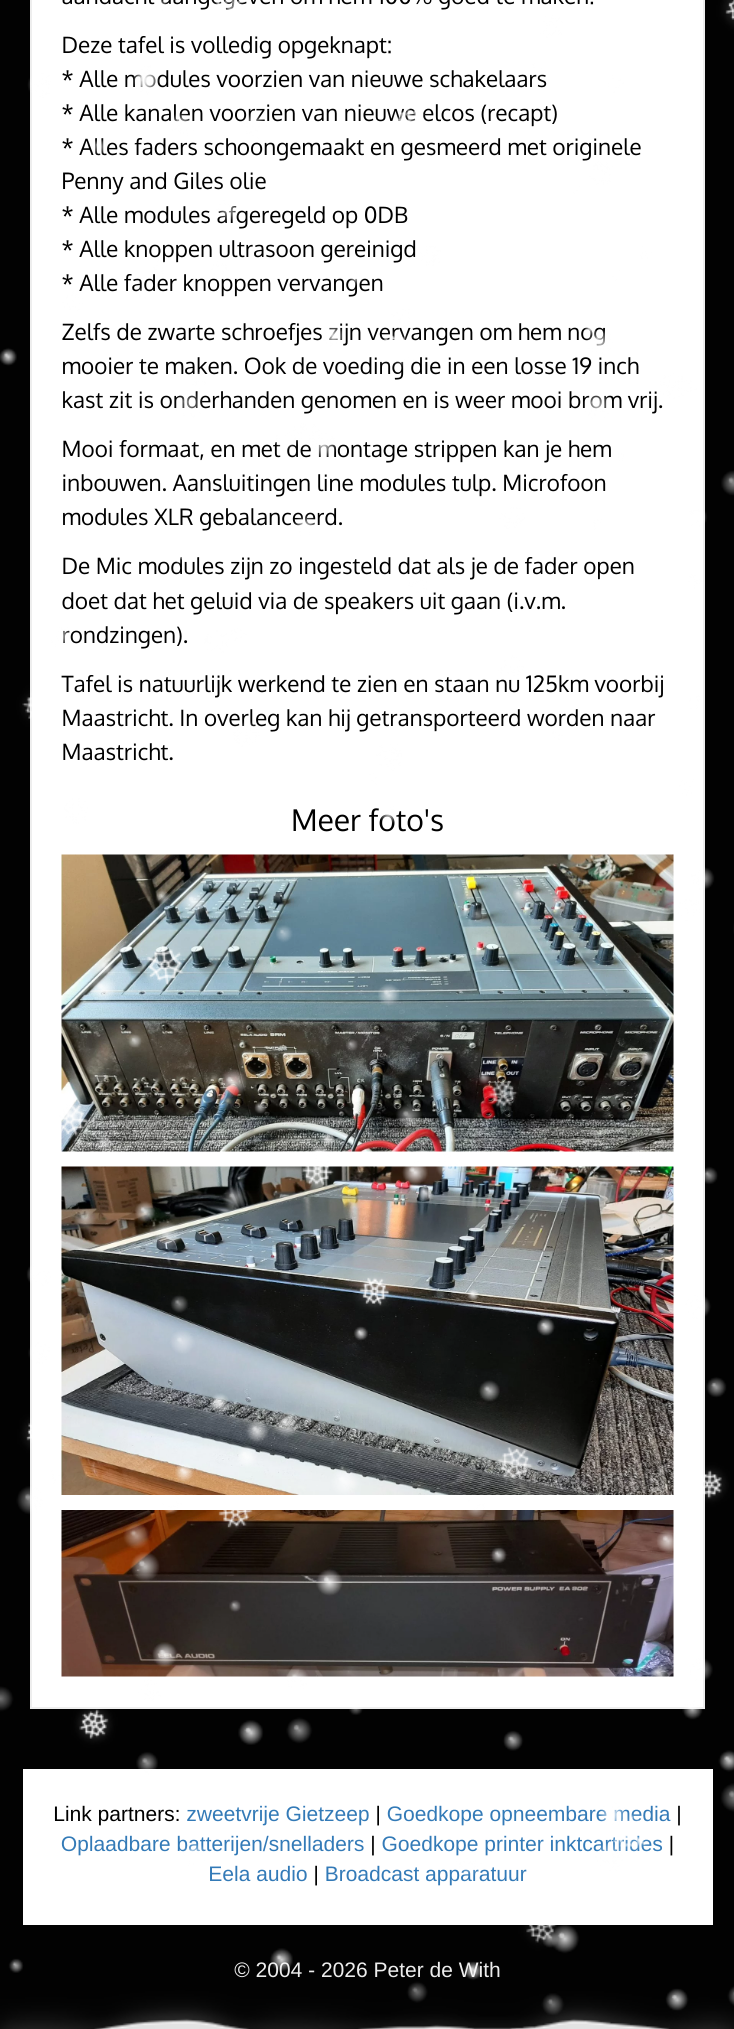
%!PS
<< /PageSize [734 2029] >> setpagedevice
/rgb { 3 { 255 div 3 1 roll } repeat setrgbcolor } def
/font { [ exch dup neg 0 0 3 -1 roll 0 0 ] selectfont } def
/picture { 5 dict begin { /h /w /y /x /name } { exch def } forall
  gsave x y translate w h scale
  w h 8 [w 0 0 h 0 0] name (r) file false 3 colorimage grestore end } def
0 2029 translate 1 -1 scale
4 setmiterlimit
2 2 2 rgb
0 0 734 2029 rectfill
255 255 255 rgb
31 -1 moveto 704 -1 lineto 704 1708 lineto 31 1708 lineto closepath gsave fill grestore
238 238 238 rgb
2 setlinewidth
stroke
(img/2.rgb) 61 854 613 298 picture
(img/3.rgb) 61 1166 613 329 picture
(img/4.rgb) 61 1510 613 167 picture
255 255 255 rgb
23 1769 690 156 rectfill
/Oxygen-Bold 22.5 font
0 0 0 rgb
62 53 moveto (Deze tafel is volledig opgeknapt:) show
/Oxygen-Regular 22.5 font
[
  [(* Alle modules voorzien van nieuwe schakelaars) 62 87]
  [(* Alle kanalen voorzien van nieuwe elcos \(recapt\)) 62 121]
  [(* Alles faders schoongemaakt en gesmeerd met originele) 62 155]
  [(Penny and Giles olie) 62 189]
  [(* Alle modules afgeregeld op 0DB) 62 223]
  [(* Alle knoppen ultrasoon gereinigd) 62 257]
  [(* Alle fader knoppen vervangen) 62 291]
  [(Zelfs de zwarte schroefjes zijn vervangen om hem nog) 62 340]
  [(mooier te maken. Ook de voeding die in een losse 19 inch) 62 374]
  [(kast zit is onderhanden genomen en is weer mooi brom vrij.) 62 408]
  [(Mooi formaat, en met de montage strippen kan je hem) 62 457]
  [(inbouwen. Aansluitingen line modules tulp. Microfoon) 62 491]
  [(modules XLR gebalanceerd.) 62 525]
  [(De Mic modules zijn zo ingesteld dat als je de fader open) 62 574]
  [(doet dat het geluid via de speakers uit gaan \(i.v.m.) 62 609]
  [(rondzingen\).) 62 643]
  [(Tafel is natuurlijk werkend te zien en staan nu 125km voorbij) 62 692]
  [(Maastricht. In overleg kan hij getransporteerd worden naar) 62 726]
  [(Maastricht.) 62 760]
] { aload pop moveto show } forall
/Oxygen-Bold 30 font
291 831 moveto (Meer foto's) show
/LiberationSans-Regular 21 font
53 1821 moveto (Link partners:) show
51 122 183 rgb
186 1821 moveto (zweetvrije Gietzeep) show
0 0 0 rgb
375 1821 moveto (|) show
51 122 183 rgb
387 1821 moveto (Goedkope opneembare media) show
0 0 0 rgb
676 1821 moveto (|) show
51 122 183 rgb
61 1851 moveto (Oplaadbare batterijen/snelladers) show
0 0 0 rgb
370 1851 moveto (|) show
51 122 183 rgb
382 1851 moveto (Goedkope printer inktcartrides) show
0 0 0 rgb
669 1851 moveto (|) show
51 122 183 rgb
208 1881 moveto (Eela audio) show
0 0 0 rgb
313 1881 moveto (|) show
51 122 183 rgb
325 1881 moveto (Broadcast apparatuur) show
237 237 237 rgb
234 1977 moveto (© 2004 - 2026 Peter de With) show
(img/1.rgb) 0 0 734 2029 picture
showpage
